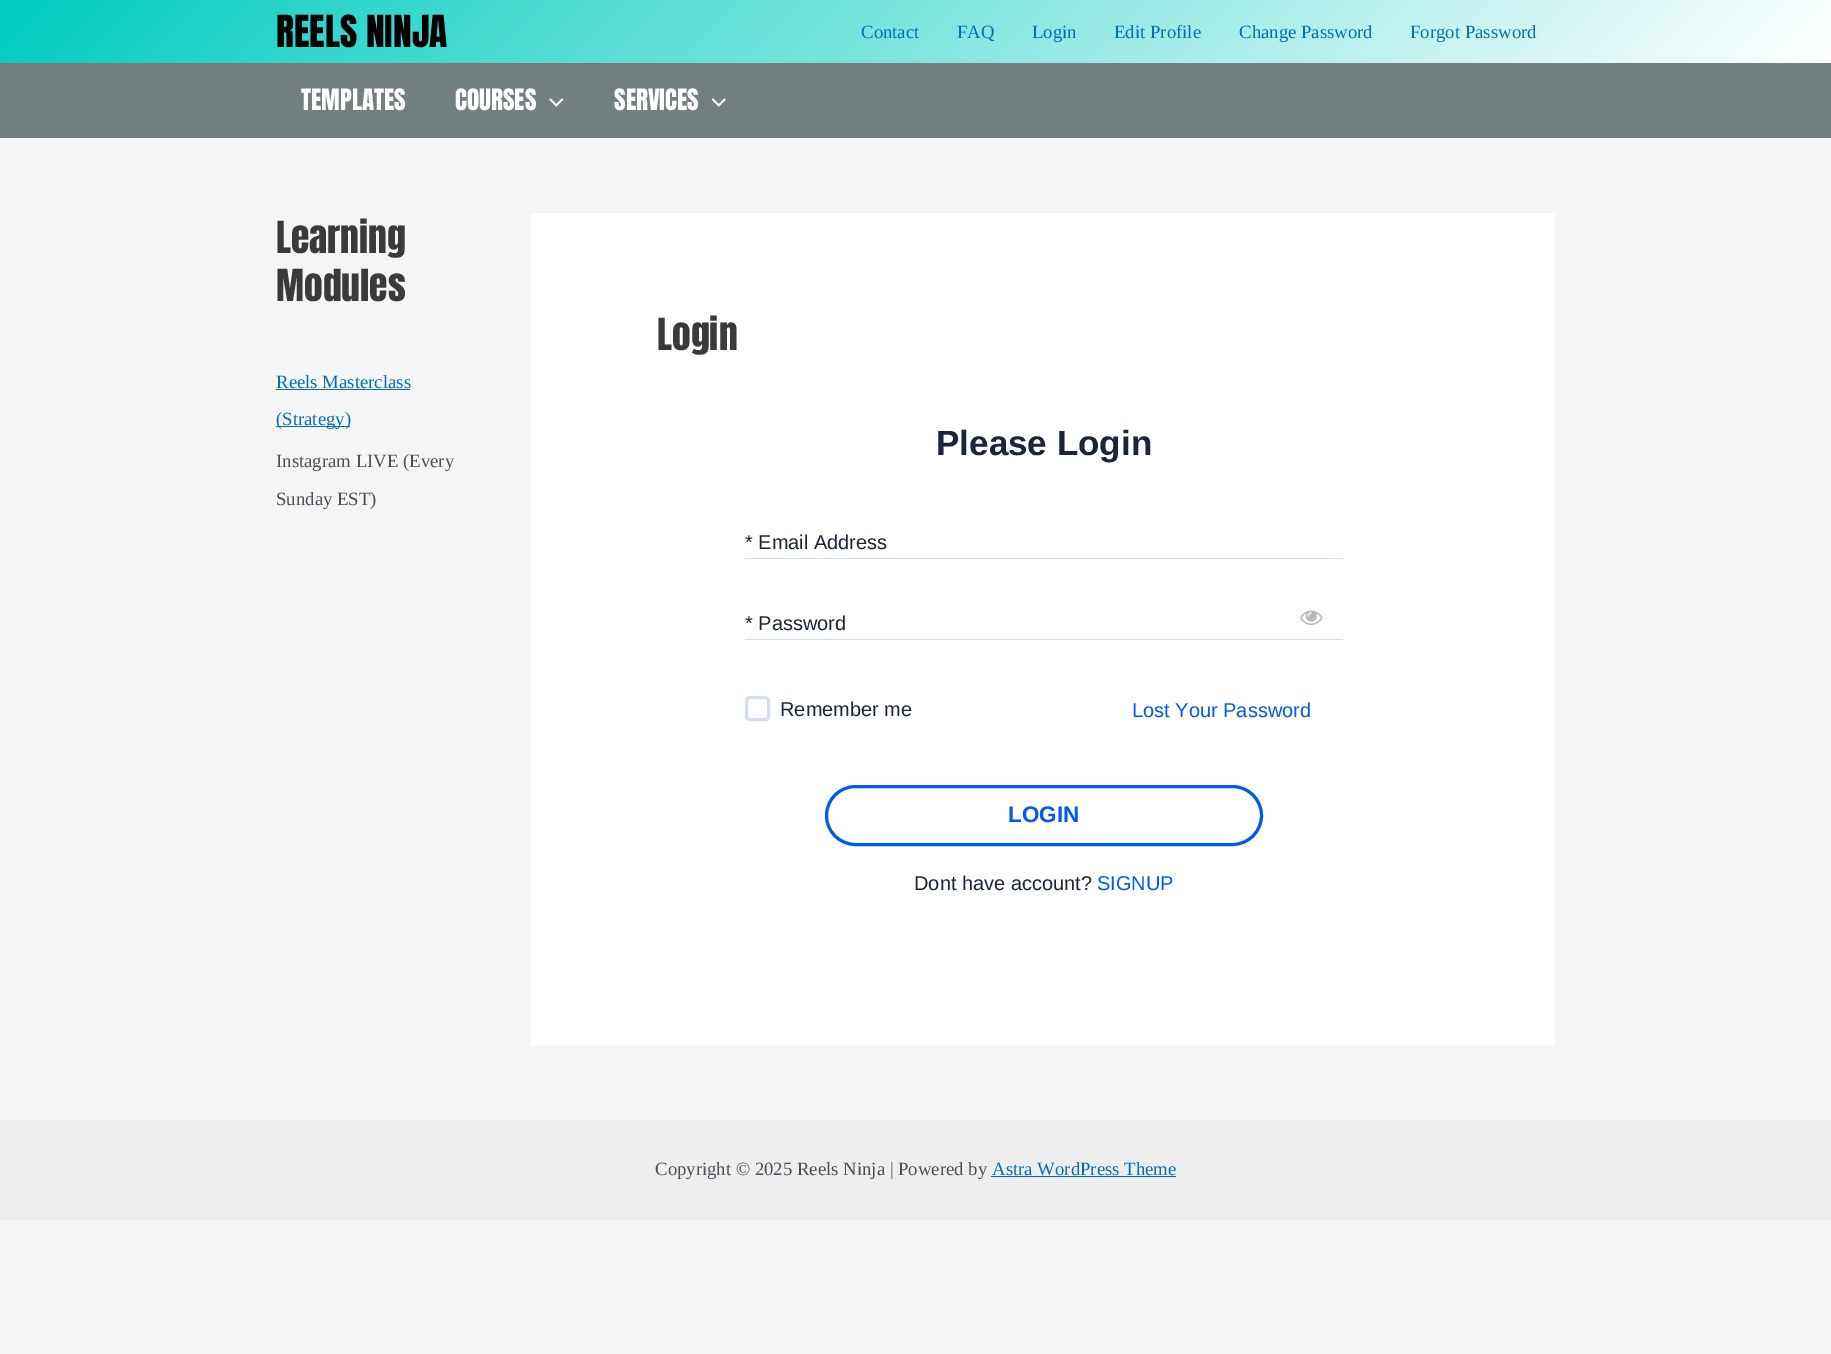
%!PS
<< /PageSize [1831 1354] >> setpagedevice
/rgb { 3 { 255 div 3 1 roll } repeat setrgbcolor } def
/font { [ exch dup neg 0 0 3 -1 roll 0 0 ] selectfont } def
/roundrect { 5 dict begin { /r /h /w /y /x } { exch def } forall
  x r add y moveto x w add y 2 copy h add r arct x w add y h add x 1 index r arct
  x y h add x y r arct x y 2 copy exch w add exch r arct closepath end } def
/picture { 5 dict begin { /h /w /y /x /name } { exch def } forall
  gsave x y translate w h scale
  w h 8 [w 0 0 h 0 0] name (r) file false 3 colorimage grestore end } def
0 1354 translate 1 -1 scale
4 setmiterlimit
245 245 245 rgb
0 0 1831 1354 rectfill
gsave 0 0 moveto 1831 0 lineto 1831 63 lineto 0 63 lineto closepath clip newpath
<< /ShadingType 2 /ColorSpace /DeviceRGB /Coords [442 -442 1389 505] /Extend [true true] /Function << /FunctionType 2 /Domain [0 1] /C0 [0 0.8 0.753] /C1 [1 1 1] /N 1 >> >> shfill grestore
116 127 127 rgb
0 63 1831 75 rectfill
(img/1.rgb) 549 98 15 9 picture
(img/2.rgb) 711 98 15 9 picture
[
  [276 389 134 1 1 112 185]
  [276 426 74 1 1 112 185]
  [531 213 1024 832 255 255 255]
  [745 558 598 1 211 222 240]
] { aload pop rgb rectfill } forall
(img/3.rgb) 1300 610 23 15 picture
745 639 598 1 rectfill
3 setlinewidth
746.5 697.5 22 22 3.5 roundrect stroke
0 90 238 rgb
826.5 786.5 435 58 29 roundrect stroke
238 238 238 rgb
0 1120 1831 100 rectfill
1 112 185 rgb
991 1176 185 1 rectfill
/Anton-Regular 37.5 font
0 0 0 rgb
276 47 moveto (REELS NINJA) show
/LiberationSerif-Regular 18.75 font
1 112 185 rgb
[
  [(Contact) 861 38]
  [(FAQ) 957 38]
  [(Login) 1032 38]
  [(Edit Profile) 1114 38]
  [(Change Password) 1239 38]
  [(Forgot Password) 1410 38]
] { aload pop moveto show } forall
/Anton-Regular 25 font
255 255 255 rgb
[
  [(TEMPLATES) 301 110]
  [(COURSES) 455 110]
  [(SERVICES) 614 110]
] { aload pop moveto show } forall
/Anton-Regular 37.5 font
58 58 58 rgb
276 253 moveto (Learning) show
276 301 moveto (Modules) show
/LiberationSerif-Regular 18.75 font
1 112 185 rgb
276 388 moveto (Reels Masterclass) show
276 425 moveto (\(Strategy\)) show
75 79 88 rgb
276 467 moveto (Instagram LIVE \(Every) show
276 505 moveto (Sunday EST\)) show
/Anton-Regular 37.5 font
58 58 58 rgb
657 350 moveto (Login) show
/LiberationSans-Bold 35 font
26 37 56 rgb
936 455 moveto (Please Login) show
/LiberationSans-Regular 20 font
[
  [(* Email Address) 745 549]
  [(* Password) 745 630]
  [(Remember me) 780 716]
] { aload pop moveto show } forall
/LiberationSans-Bold 22.5 font
0 90 238 rgb
1008 822 moveto (LOGIN) show
/LiberationSans-Regular 20 font
1132 717 moveto (Lost Your Password) show
26 37 56 rgb
914 890 moveto (Dont have account?) show
0 90 238 rgb
1097 890 moveto (SIGNUP) show
/LiberationSerif-Regular 18.75 font
75 79 88 rgb
655 1175 moveto (Copyright © 2025 Reels Ninja | Powered by) show
1 112 185 rgb
992 1175 moveto (Astra WordPress Theme) show
showpage
